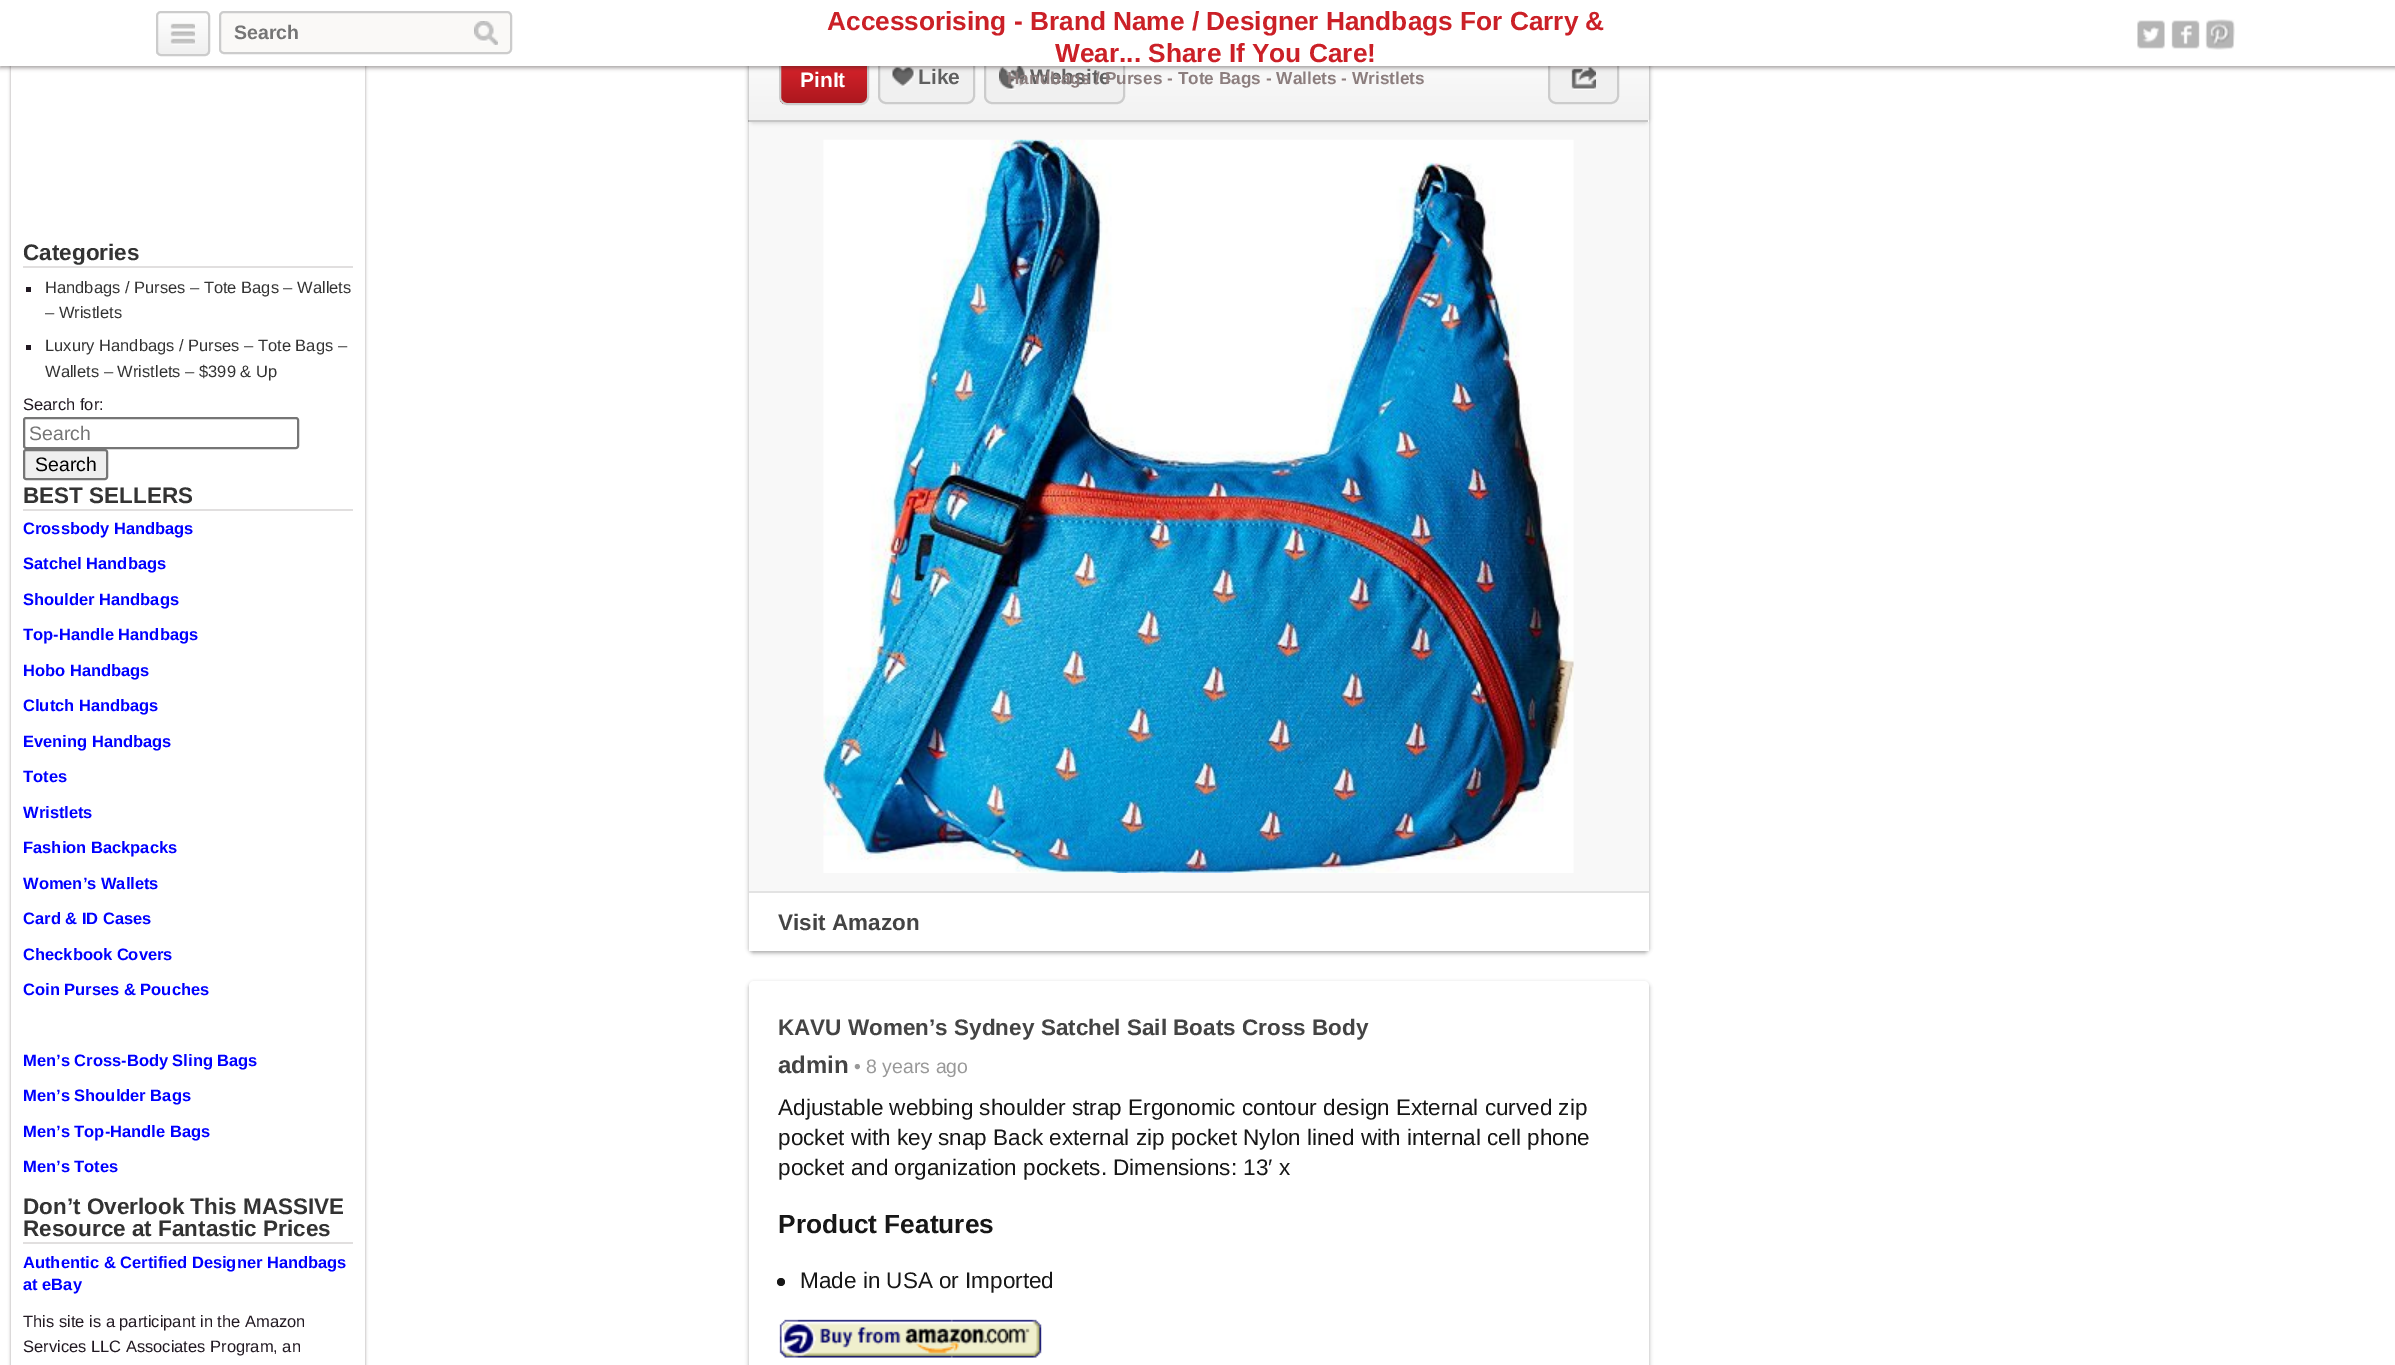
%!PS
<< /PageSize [2395 1365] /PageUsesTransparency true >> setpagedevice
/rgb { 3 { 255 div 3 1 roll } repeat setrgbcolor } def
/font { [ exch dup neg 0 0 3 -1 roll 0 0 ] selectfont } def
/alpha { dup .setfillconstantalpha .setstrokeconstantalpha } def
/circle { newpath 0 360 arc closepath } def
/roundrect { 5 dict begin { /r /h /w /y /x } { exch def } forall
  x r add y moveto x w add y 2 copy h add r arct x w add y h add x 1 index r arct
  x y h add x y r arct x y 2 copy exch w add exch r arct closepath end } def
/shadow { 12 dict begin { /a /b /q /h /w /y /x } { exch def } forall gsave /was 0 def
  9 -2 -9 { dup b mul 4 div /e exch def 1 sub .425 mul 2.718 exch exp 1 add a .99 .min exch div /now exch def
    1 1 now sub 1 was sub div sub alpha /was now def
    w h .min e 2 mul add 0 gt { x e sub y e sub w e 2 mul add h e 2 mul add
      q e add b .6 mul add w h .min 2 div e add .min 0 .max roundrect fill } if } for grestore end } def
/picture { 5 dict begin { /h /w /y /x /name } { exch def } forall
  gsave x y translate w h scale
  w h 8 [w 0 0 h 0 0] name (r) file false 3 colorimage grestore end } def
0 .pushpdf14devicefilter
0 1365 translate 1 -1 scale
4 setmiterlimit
255 255 255 rgb
0 0 2395 1365 rectfill
34 25 25 rgb
11 36 354 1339 5 1.5 0.4 shadow
255 255 255 rgb
11 66 354 1299 rectfill
0 0 0 rgb
749 36 900 917 5 2 0.33 shadow
248 248 248 rgb
749 66 900 825 rectfill
gsave
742 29 moveto 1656 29 lineto 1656 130 lineto 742 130 lineto closepath 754 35 moveto 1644 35 lineto 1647 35 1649 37 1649 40 curveto 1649 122 lineto 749 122 lineto 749 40 lineto 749 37 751 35 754 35 curveto closepath eoclip newpath
0 0 0 rgb
749 36 900 87 5 2 0.15 shadow
grestore
0.9 alpha
gsave 749 66 moveto 1649 66 lineto 1649 120 lineto 749 120 lineto closepath clip newpath
<< /ShadingType 2 /ColorSpace /DeviceRGB /Coords [1199 36 1199 120] /Extend [true true] /Function << /FunctionType 2 /Domain [0 1] /C0 [1 1 1] /C1 [0.945 0.945 0.945] /N 1 >> >> shfill grestore
1 alpha
gsave 780 53 87 51 6 roundrect clip newpath
<< /ShadingType 2 /ColorSpace /DeviceRGB /Coords [824 53 824 104] /Extend [true true] /Function << /FunctionType 2 /Domain [0 1] /C0 [0.89 0.149 0.18] /C1 [0.671 0.09 0.118] /N 1 >> >> shfill grestore
204 204 204 rgb
2 setlinewidth
780 52 88 52 7 roundrect stroke
240 240 240 rgb
879 52 95 51 7 roundrect gsave fill grestore
204 204 204 rgb
stroke
(img/6.rgb) 892 67 23 20 picture
240 240 240 rgb
985 52 139 51 7 roundrect gsave fill grestore
204 204 204 rgb
stroke
(img/7.rgb) 999 66 26 24 picture
240 240 240 rgb
1549 52 69 51 7 roundrect gsave fill grestore
204 204 204 rgb
stroke
(img/8.rgb) 1571 67 25 23 picture
34 25 25 rgb
0 2 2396 66 0 2 0.4 shadow
255 255 255 rgb
0 0 2395 66 rectfill
gsave
156 11 54 45 5 roundrect clip newpath
gsave 156 12 moveto 210 12 lineto 210 54 lineto 156 54 lineto closepath clip newpath
<< /ShadingType 2 /ColorSpace /DeviceRGB /Coords [183 12 183 54] /Extend [true true] /Function << /FunctionType 2 /Domain [0 1] /C0 [1 1 1] /C1 [0.941 0.941 0.941] /N 1 >> >> shfill grestore
grestore
204 204 204 rgb
157 12 52 43 4 roundrect stroke
(img/1.rgb) 170 23 25 22 picture
250 249 247 rgb
220 12 291 41 4 roundrect gsave fill grestore
204 204 204 rgb
stroke
(img/2.rgb) 474 21 24 24 picture
(img/3.rgb) 2137 20 28 29 picture
(img/4.rgb) 2171 20 29 29 picture
(img/5.rgb) 2205 19 30 31 picture
[
  [23 266 330 2 225 223 223]
  [26 287 5 5 33 25 34]
  [26 345 5 5 33 25 34]
] { aload pop rgb rectfill } forall
118 118 118 rgb
24 418 274 30 2 roundrect stroke
239 239 239 rgb
24 450 83 29 2 roundrect gsave fill grestore
118 118 118 rgb
stroke
225 223 223 rgb
23 509 330 2 rectfill
23 1242 330 2 rectfill
0.9 alpha
gsave 749 120 moveto 1649 120 lineto 1649 122 lineto 749 122 lineto closepath clip newpath
<< /ShadingType 2 /ColorSpace /DeviceRGB /Coords [1199 120 1199 204] /Extend [true true] /Function << /FunctionType 2 /Domain [0 1] /C0 [1 1 1] /C1 [0.945 0.945 0.945] /N 1 >> >> shfill grestore
0.22 alpha
0 0 0 rgb
748 120 900 2 rectfill
1 alpha
(img/9.rgb) 823 139 751 734 picture
255 255 255 rgb
749 893 900 58 rectfill
227 227 227 rgb
749 891 900 2 rectfill
0 0 0 rgb
749 983 900 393 5 2 0.33 shadow
255 255 255 rgb
749 981 900 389 5 roundrect fill
23 23 23 rgb
781 1282 4 circle fill
(img/10.rgb) 779 1319 263 39 picture
/LiberationSans-Bold 19.5 font
117 117 117 rgb
234 39 moveto (Search) show
/LiberationSans-Bold 26.25 font
203 32 39 rgb
827 30 moveto (Accessorising - Brand Name / Designer Handbags For Carry &) show
1055 62 moveto (Wear... Share If You Care!) show
/LiberationSans-Bold 22.5 font
51 51 51 rgb
23 260 moveto (Categories) show
/LiberationSans-Regular 16.5 font
[
  [(Handbags / Purses – Tote Bags – Wallets) 45 293]
  [(– Wristlets) 45 318]
  [(Luxury Handbags / Purses – Tote Bags –) 45 351]
  [(Wallets – Wristlets – $399 & Up) 45 377]
] { aload pop moveto show } forall
33 25 34 rgb
23 410 moveto (Search for:) show
/LiberationSans-Regular 19.5 font
117 117 117 rgb
29 440 moveto (Search) show
0 0 0 rgb
35 471 moveto (Search) show
/LiberationSans-Bold 22.5 font
51 51 51 rgb
23 503 moveto (BEST SELLERS) show
/LiberationSans-Bold 16.5 font
0 0 255 rgb
[
  [(Crossbody Handbags) 23 534]
  [(Satchel Handbags) 23 569]
  [(Shoulder Handbags) 23 605]
  [(Top-Handle Handbags) 23 640]
  [(Hobo Handbags) 23 676]
  [(Clutch Handbags) 23 711]
  [(Evening Handbags) 23 747]
  [(Totes) 23 782]
  [(Wristlets) 23 818]
  [(Fashion Backpacks) 23 853]
  [(Women’s Wallets) 23 889]
  [(Card & ID Cases) 23 924]
  [(Checkbook Covers) 23 960]
  [(Coin Purses & Pouches) 23 995]
  [(Men’s Cross-Body Sling Bags) 23 1066]
  [(Men’s Shoulder Bags) 23 1101]
  [(Men’s Top-Handle Bags) 23 1137]
  [(Men’s Totes) 23 1172]
] { aload pop moveto show } forall
/LiberationSans-Bold 22.5 font
51 51 51 rgb
23 1214 moveto (Don’t Overlook This MASSIVE) show
23 1236 moveto (Resource at Fantastic Prices) show
/LiberationSans-Bold 16.5 font
0 0 255 rgb
23 1268 moveto (Authentic & Certified Designer Handbags) show
23 1290 moveto (at eBay) show
/LiberationSans-Regular 16.5 font
33 25 34 rgb
23 1327 moveto (This site is a participant in the Amazon) show
23 1352 moveto (Services LLC Associates Program, an) show
/LiberationSans-Bold 21 font
255 255 255 rgb
800 87 moveto (PinIt) show
95 95 95 rgb
918 84 moveto (Like) show
1030 84 moveto (Website) show
/LiberationSans-Bold 17.25 font
140 126 126 rgb
1007 84 moveto (Handbags / Purses - Tote Bags - Wallets - Wristlets) show
/LiberationSans-Bold 22.5 font
68 68 68 rgb
778 930 moveto (Visit Amazon) show
778 1035 moveto (KAVU Women’s Sydney Satchel Sail Boats Cross Body) show
/LiberationSans-Bold 24 font
778 1073 moveto (admin) show
/LiberationSans-Regular 19.5 font
153 153 153 rgb
854 1073 moveto (• 8 years ago) show
/LiberationSans-Regular 22.5 font
23 23 23 rgb
[
  [(Adjustable webbing shoulder strap Ergonomic contour design External curved zip) 778 1115]
  [(pocket with key snap Back external zip pocket Nylon lined with internal cell phone) 778 1145]
  [(pocket and organization pockets. Dimensions: 13′ x) 778 1175]
] { aload pop moveto show } forall
/LiberationSans-Bold 26.25 font
778 1233 moveto (Product Features) show
/LiberationSans-Regular 22.5 font
800 1288 moveto (Made in USA or Imported) show
.poppdf14devicefilter showpage
